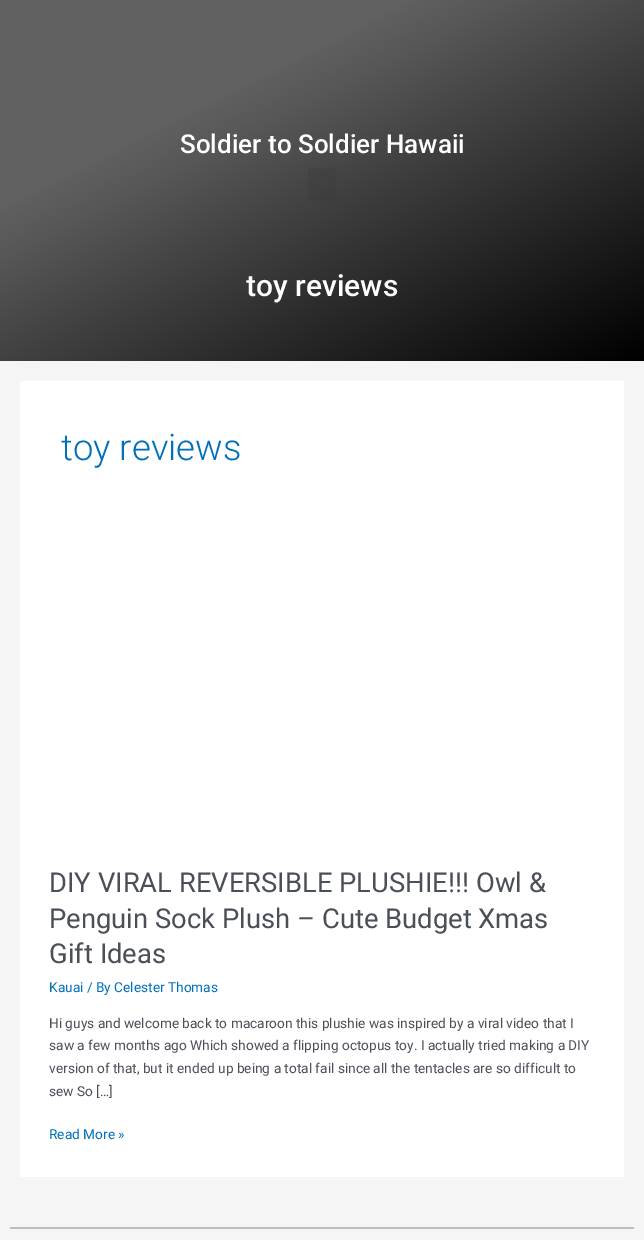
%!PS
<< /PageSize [644 1240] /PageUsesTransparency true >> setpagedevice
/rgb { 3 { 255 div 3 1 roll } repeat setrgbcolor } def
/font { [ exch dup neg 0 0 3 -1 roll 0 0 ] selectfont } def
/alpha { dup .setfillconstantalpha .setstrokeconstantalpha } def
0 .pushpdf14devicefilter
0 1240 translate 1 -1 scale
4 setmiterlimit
245 245 245 rgb
0 0 644 1240 rectfill
gsave 0 0 moveto 644 0 lineto 644 361 lineto 0 361 lineto closepath clip newpath
<< /ShadingType 2 /ColorSpace /DeviceRGB /Coords [183 -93 461 454] /Extend [true true] /Function << /FunctionType 3 /Domain [0 1] /Functions [<< /FunctionType 2 /Domain [0 1] /C0 [0.38 0.38 0.38] /C1 [0.38 0.38 0.38] /N 1 >> << /FunctionType 2 /Domain [0 1] /C0 [0.38 0.38 0.38] /C1 [0 0 0] /N 1 >>] /Bounds [0.3] /Encode [0 1 0 1] >> >> shfill grestore
0.05 alpha
[
  [308 168 28 33 0 0 0]
] { aload pop rgb rectfill } forall
1 alpha
[
  [20 381 604 796 255 255 255]
  [10 1227 624 2 189 189 189]
] { aload pop rgb rectfill } forall
/Roboto-Medium 26 font
255 255 255 rgb
180 153 moveto (Soldier to Soldier Hawaii) show
/Roboto-Medium 30 font
246 296 moveto (toy reviews) show
/Roboto-Light 36.5 font
1 112 185 rgb
61 460 moveto (toy reviews) show
/Roboto-Regular 27.4 font
75 79 88 rgb
[
  [(DIY VIRAL REVERSIBLE PLUSHIE!!! Owl &) 49 892]
  [(Penguin Sock Plush – Cute Budget Xmas) 49 928]
  [(Gift Ideas) 49 963]
] { aload pop moveto show } forall
/Roboto-Regular 13.7 font
1 112 185 rgb
49 992 moveto (Kauai / By Celester Thomas) show
75 79 88 rgb
[
  [(Hi guys and welcome back to macaroon this plushie was inspired by a viral video that I) 49 1028]
  [(saw a few months ago Which showed a flipping octopus toy. I actually tried making a DIY) 49 1050]
  [(version of that, but it ended up being a total fail since all the tentacles are so difficult to) 49 1073]
  [(sew So […]) 49 1096]
] { aload pop moveto show } forall
1 112 185 rgb
49 1139 moveto (Read More ») show
.poppdf14devicefilter showpage
